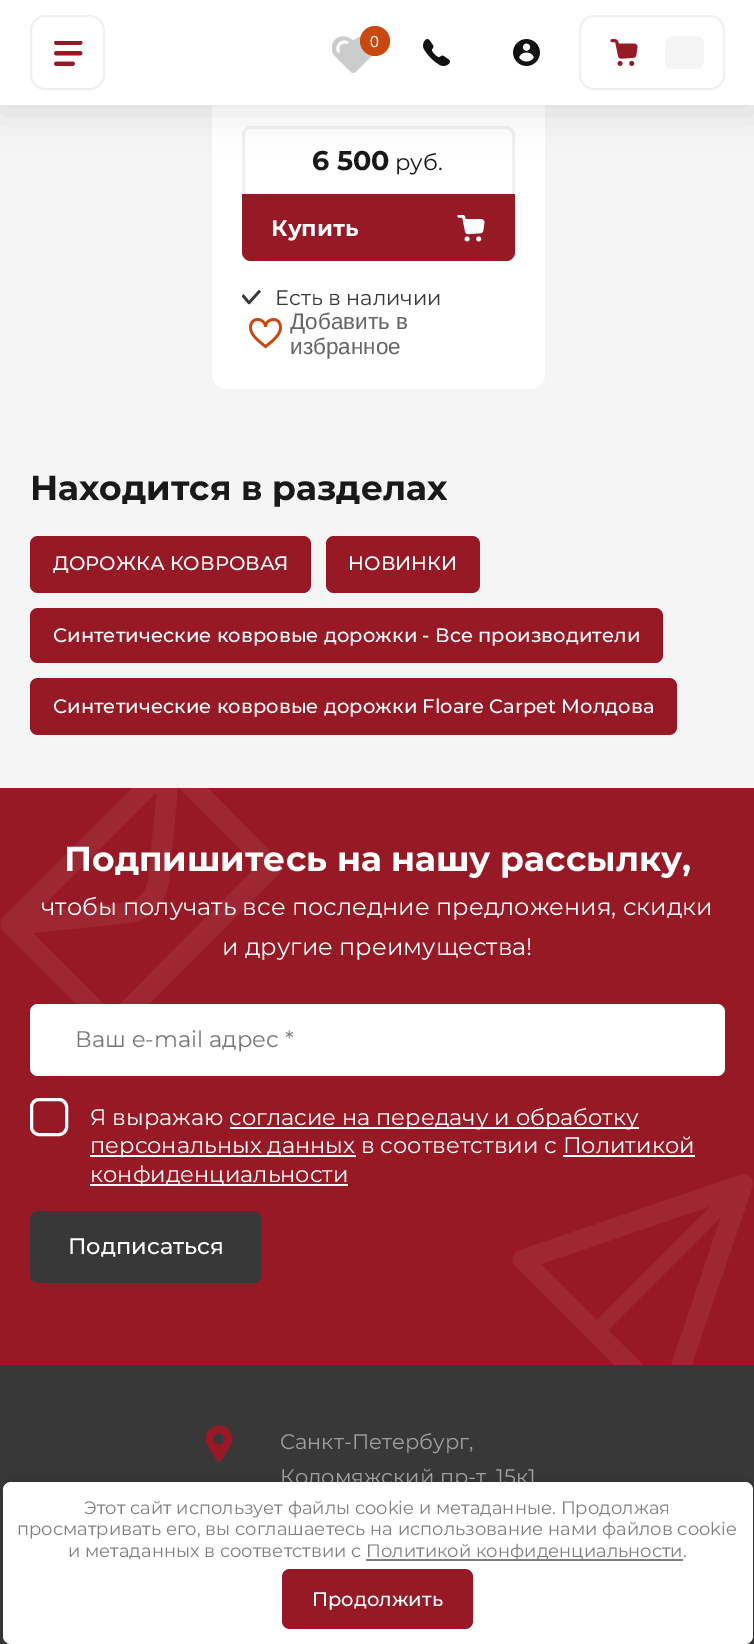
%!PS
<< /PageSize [754 1644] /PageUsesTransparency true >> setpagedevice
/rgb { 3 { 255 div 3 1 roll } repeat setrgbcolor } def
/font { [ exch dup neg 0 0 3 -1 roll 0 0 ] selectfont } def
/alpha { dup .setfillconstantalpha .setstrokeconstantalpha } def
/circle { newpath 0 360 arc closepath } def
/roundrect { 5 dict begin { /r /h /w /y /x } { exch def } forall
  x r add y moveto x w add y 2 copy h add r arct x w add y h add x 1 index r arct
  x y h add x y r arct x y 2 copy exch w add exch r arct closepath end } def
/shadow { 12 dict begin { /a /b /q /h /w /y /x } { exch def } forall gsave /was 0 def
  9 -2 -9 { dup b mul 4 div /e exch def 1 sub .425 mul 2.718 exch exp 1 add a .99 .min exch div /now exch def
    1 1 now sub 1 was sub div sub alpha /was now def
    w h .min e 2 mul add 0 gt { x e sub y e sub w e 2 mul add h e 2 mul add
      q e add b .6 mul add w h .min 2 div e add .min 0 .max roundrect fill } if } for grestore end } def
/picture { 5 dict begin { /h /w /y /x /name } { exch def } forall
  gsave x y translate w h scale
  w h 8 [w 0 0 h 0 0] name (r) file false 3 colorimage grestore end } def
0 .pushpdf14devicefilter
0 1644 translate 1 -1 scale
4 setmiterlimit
245 245 245 rgb
0 0 754 1644 rectfill
255 255 255 rgb
212 -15 333 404 15 roundrect fill
240 240 240 rgb
3 setlinewidth
243.5 127.5 270 132 7.5 roundrect stroke
0 0 0 rgb
0 8 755 105 0 19 0.1 shadow
255 255 255 rgb
0 0 754 105 rectfill
240 240 240 rgb
2 setlinewidth
31 16 73 73 14 roundrect stroke
(img/1.rgb) 54 41 29 25 picture
(img/2.rgb) 423 39 27 27 picture
(img/3.rgb) 513 39 27 27 picture
580 16 144 73 14 roundrect stroke
(img/4.rgb) 610 39 28 27 picture
245 245 245 rgb
665 36 39 33 8 roundrect fill
(img/5.rgb) 332 36 41 37 picture
200 72 15 rgb
375 41 15 circle fill
151 25 37 rgb
242 194 moveto 515 194 lineto 515 252 lineto 515 257 511 261 506 261 curveto 251 261 lineto 246 261 242 257 242 252 curveto closepath fill
(img/6.rgb) 457 215 28 27 picture
(img/7.rgb) 242 290 19 15 picture
(img/8.rgb) 249 318 33 31 picture
30 536 281 57 8 roundrect fill
326 536 154 57 8 roundrect fill
30 608 633 55 8 roundrect fill
30 678 647 57 8 roundrect fill
0 788 754 577 rectfill
gsave
0 788 282 249 rectclip
157 39 50 rgb
177 757 moveto 165 746 149 772 136 784 curveto 3 917 lineto 0 921 -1 926 2 930 curveto 105 1033 lineto 108 1037 114 1037 118 1035 curveto 279 874 lineto 281 872 282 869 282 866 curveto 282 864 281 862 280 861 curveto closepath 157 792 moveto 148 880 lineto 147 892 138 901 126 903 curveto 38 911 lineto closepath 112 1012 moveto 33 933 lineto 128 923 lineto 139 922 148 917 155 910 curveto 163 903 167 893 169 882 curveto 178 787 lineto 257 866 lineto closepath fill
grestore
255 255 255 rgb
30 1004 695 72 8 roundrect fill
3 setlinewidth
31.5 1099.5 35 35 7.5 roundrect stroke
[
  [230 1127 409 2 255 255 255]
  [90 1155 266 2 255 255 255]
  [563 1155 132 2 255 255 255]
  [90 1184 258 2 255 255 255]
] { aload pop rgb rectfill } forall
56 56 56 rgb
30 1211 231 72 8 roundrect fill
gsave
512 1173 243 192 rectclip
157 39 50 rgb
750 1177 moveto 747 1175 743 1174 740 1175 curveto 520 1250 lineto 516 1251 514 1254 513 1257 curveto 512 1261 513 1264 516 1267 curveto 661 1412 lineto 663 1414 665 1415 668 1415 curveto 670 1414 lineto 674 1413 676 1411 677 1408 curveto 752 1188 lineto 754 1184 753 1180 750 1177 curveto closepath 711 1206 moveto 597 1320 lineto 541 1264 lineto closepath 664 1386 moveto 608 1330 lineto 721 1217 lineto closepath fill
grestore
0 1365 754 279 rectfill
(img/9.rgb) 206 1425 27 38 picture
0 0 0 rgb
3 1484 750 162 8 7.5 0.23 shadow
/LiberationSans-Regular 16 font
255 255 255 rgb
370 47 moveto (0) show
/Montserrat-Bold 27 font
25 25 25 rgb
312 170 moveto (6 500) show
/Montserrat-Regular 22.5 font
395 170 moveto (руб.) show
/Montserrat-Bold 22.5 font
255 255 255 rgb
271 236 moveto (Купить) show
/Montserrat-Regular 21 font
56 56 56 rgb
275 305 moveto (Есть в наличии) show
/LiberationSans-Regular 22.5 font
102 102 102 rgb
290 329 moveto (Добавить в) show
290 354 moveto (избранное) show
/Montserrat-Bold 34.5 font
25 25 25 rgb
30 500 moveto (Находится в разделах) show
/Montserrat-Medium 19.5 font
255 255 255 rgb
[
  [(ДОРОЖКА КОВРОВАЯ) 53 570]
  [(НОВИНКИ) 348 570]
  [(Синтетические ковровые дорожки - Все производители) 53 642]
  [(Синтетические ковровые дорожки Floare Carpet Молдова) 53 713]
] { aload pop moveto show } forall
/Montserrat-Bold 34.5 font
64 871 moveto (Подпишитесь на нашу рассылку,) show
/Montserrat-Regular 24 font
41 915 moveto (чтобы получать все последние предложения, скидки) show
222 955 moveto (и другие преимущества!) show
/Montserrat-Regular 22.5 font
117 117 117 rgb
75 1047 moveto (Ваш e-mail адрес *) show
255 255 255 rgb
[
  [(Я выражаю) 90 1125]
  [(согласие на передачу и обработку) 229 1125]
  [(персональных данных в соответствии с Политикой) 90 1153]
  [(конфиденциальности) 90 1182]
] { aload pop moveto show } forall
/Montserrat-Medium 22.5 font
68 1254 moveto (Подписаться) show
/Montserrat-Regular 21 font
160 160 160 rgb
280 1449 moveto (Санкт-Петербург,) show
280 1484 moveto (Коломяжский пр-т, 15к1) show
255 255 255 rgb
3 1482 750 162 8 roundrect fill
/Montserrat-Regular 18 font
128 128 128 rgb
[
  [(Этот сайт использует файлы cookie и метаданные. Продолжая) 84 1514]
  [(просматривать его, вы соглашаетесь на использование нами файлов cookie) 17 1535]
  [(и метаданных в соответствии с) 68 1557]
] { aload pop moveto show } forall
366 1559 317 2 rectfill
366 1557 moveto (Политикой конфиденциальности.) show
151 25 37 rgb
282 1569 191 60 8 roundrect fill
/Montserrat-Medium 19.5 font
255 255 255 rgb
312 1606 moveto (Продолжить) show
.poppdf14devicefilter showpage
